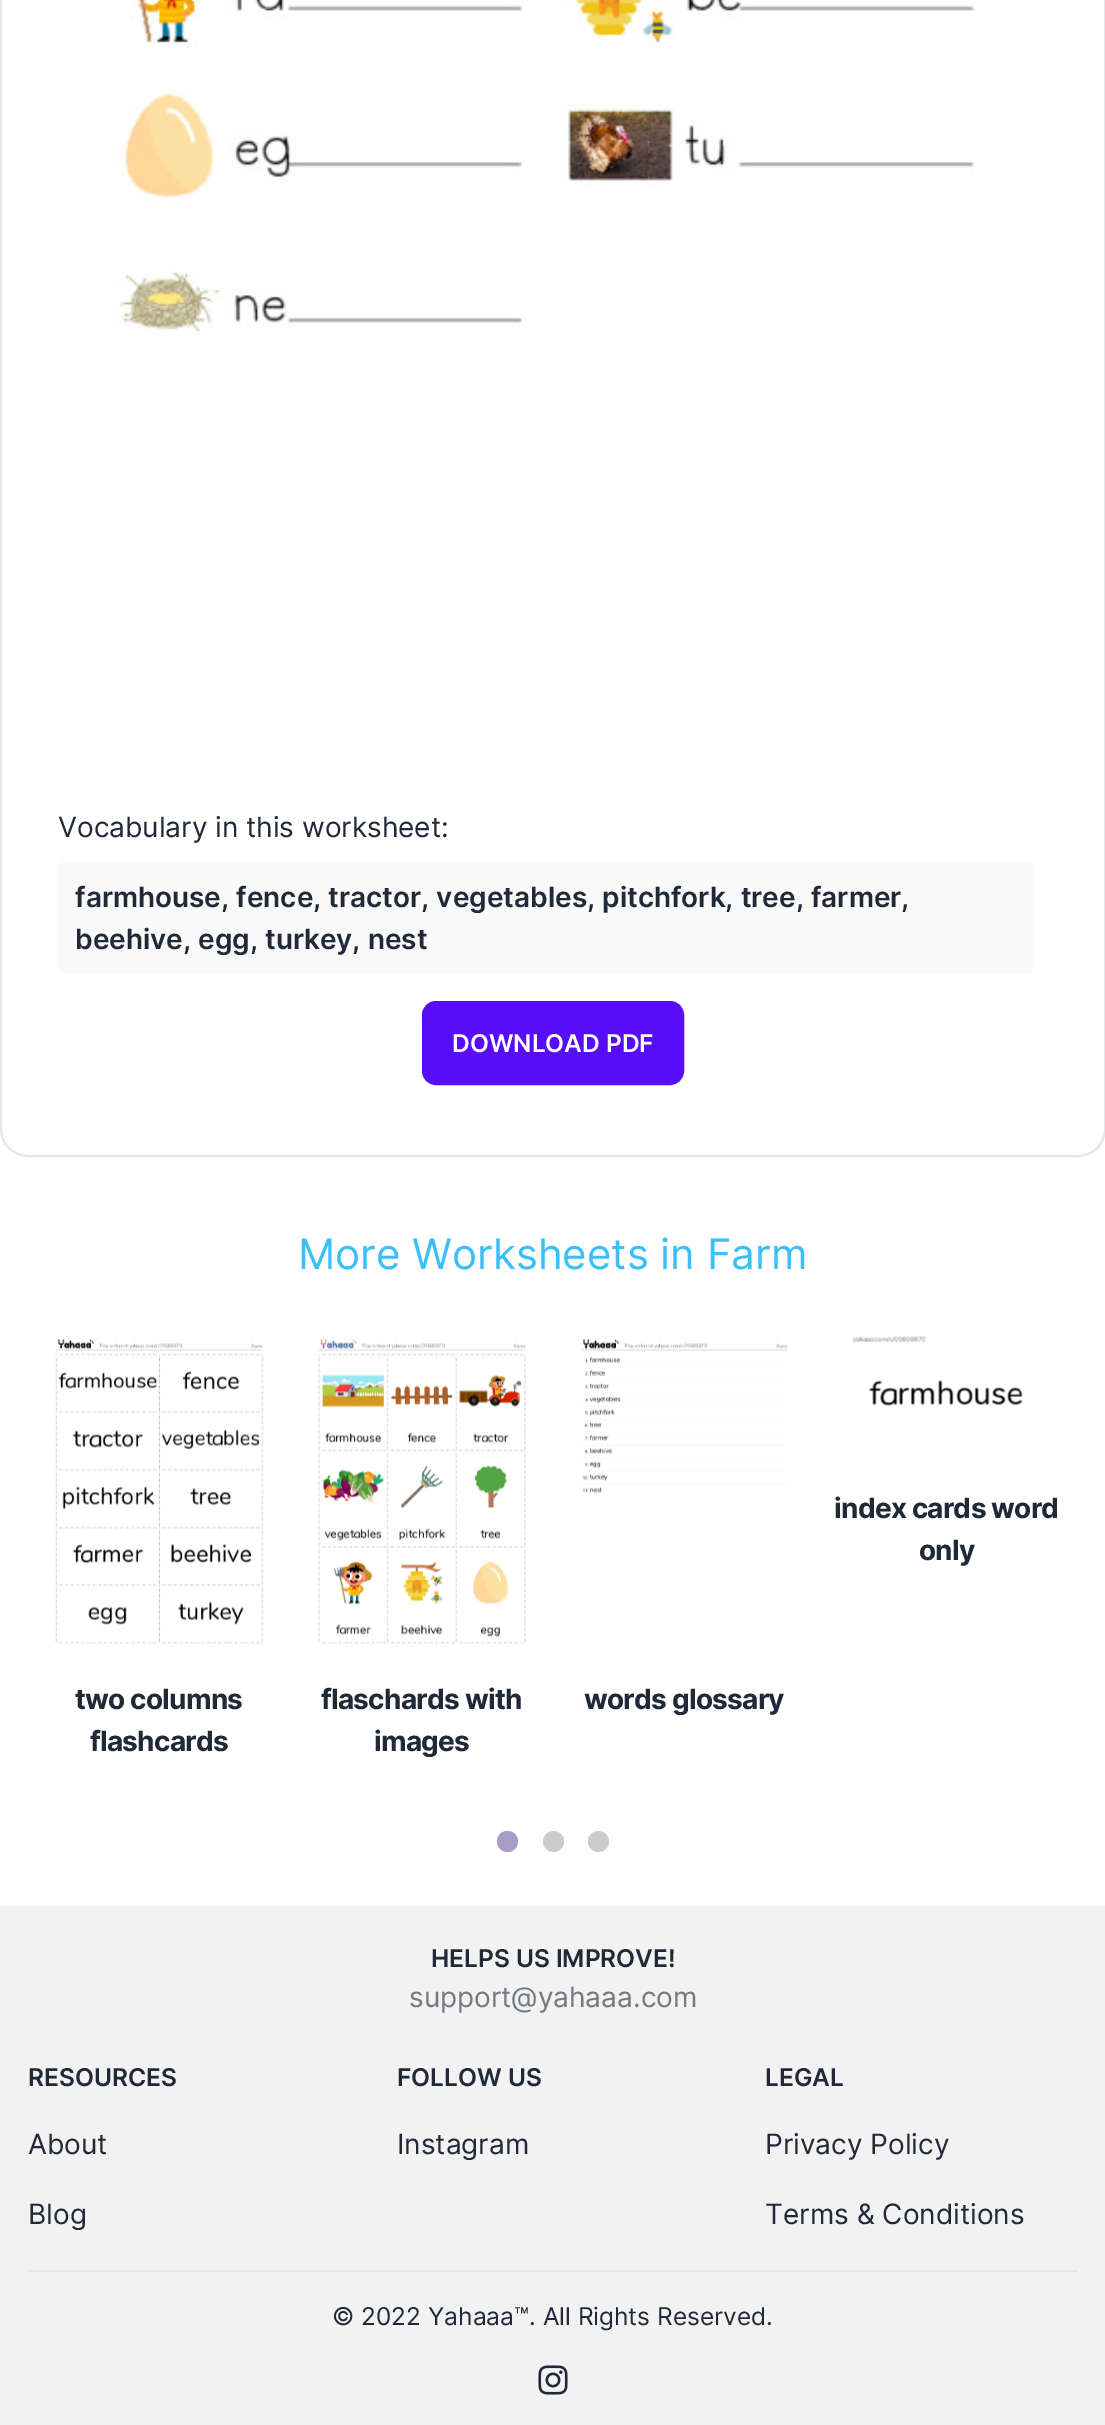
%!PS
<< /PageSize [1105 2425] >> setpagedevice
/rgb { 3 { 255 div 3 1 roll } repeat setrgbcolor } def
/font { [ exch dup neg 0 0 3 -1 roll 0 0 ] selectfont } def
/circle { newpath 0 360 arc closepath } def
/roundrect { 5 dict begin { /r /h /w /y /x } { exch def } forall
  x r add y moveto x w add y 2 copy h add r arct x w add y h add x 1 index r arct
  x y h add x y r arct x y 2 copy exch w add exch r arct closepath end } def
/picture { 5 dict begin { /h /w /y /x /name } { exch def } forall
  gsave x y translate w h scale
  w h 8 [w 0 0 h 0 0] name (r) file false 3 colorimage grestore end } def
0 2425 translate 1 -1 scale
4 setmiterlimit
255 255 255 rgb
0 0 1105 2425 rectfill
229 231 235 rgb
2 setlinewidth
1 -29 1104 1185 27 roundrect stroke
(img/1.rgb) 116 0 859 335 picture
249 249 249 rgb
58 861 976 112 7 roundrect fill
87 13 248 rgb
423 1002 260 82 13 roundrect gsave fill grestore
stroke
(img/2.rgb) 852 1336 171 70 picture
(img/3.rgb) 55 1339 209 305 picture
(img/4.rgb) 318 1338 208 306 picture
(img/5.rgb) 581 1339 207 154 picture
168 156 200 rgb
507.5 1841.5 10.5 circle fill
204 204 204 rgb
553.5 1841.5 10.5 circle fill
598.5 1841.5 10.5 circle fill
242 242 242 rgb
0 1906 1105 519 rectfill
229 230 230 rgb
28 2270 1050 2 rectfill
(img/6.rgb) 538 2365 30 30 picture
/Inter-Regular 28 font
31 41 55 rgb
58 837 moveto (Vocabulary in this worksheet:) show
/Inter-SemiBold 28 font
75 907 moveto (farmhouse, fence, tractor, vegetables, pitchfork, tree, farmer,) show
75 949 moveto (beehive, egg, turkey, nest) show
/Inter-SemiBold 24.5 font
255 255 255 rgb
452 1052 moveto (DOWNLOAD PDF) show
/Inter-Regular 42 font
58 191 248 rgb
298 1269 moveto (More Worksheets in Farm) show
/Inter-Bold 28 font
31 41 55 rgb
834 1518 moveto -0.75 0 (index cards word) ashow
919 1560 moveto -0.75 0 (only) ashow
75 1709 moveto -0.75 0 (two columns) ashow
90 1751 moveto -0.75 0 (flashcards) ashow
321 1709 moveto -0.75 0 (flaschards with) ashow
374 1751 moveto -0.75 0 (images) ashow
584 1709 moveto -0.75 0 (words glossary) ashow
/Inter-SemiBold 24.5 font
431 1967 moveto (HELPS US IMPROVE!) show
/Inter-Regular 28 font
115 121 130 rgb
409 2007 moveto (support@yahaaa.com) show
/Inter-SemiBold 24.5 font
31 41 55 rgb
28 2086 moveto (RESOURCES) show
/Inter-Regular 28 font
28 2154 moveto (About) show
28 2224 moveto (Blog) show
/Inter-SemiBold 24.5 font
397 2086 moveto (FOLLOW US) show
/Inter-Regular 28 font
397 2154 moveto (Instagram) show
/Inter-SemiBold 24.5 font
765 2086 moveto (LEGAL) show
/Inter-Regular 28 font
765 2154 moveto (Privacy Policy) show
765 2224 moveto (Terms & Conditions) show
/Inter-Regular 24.5 font
332 2325 moveto (© 2022 Yahaaa™. All Rights Reserved.) show
showpage
